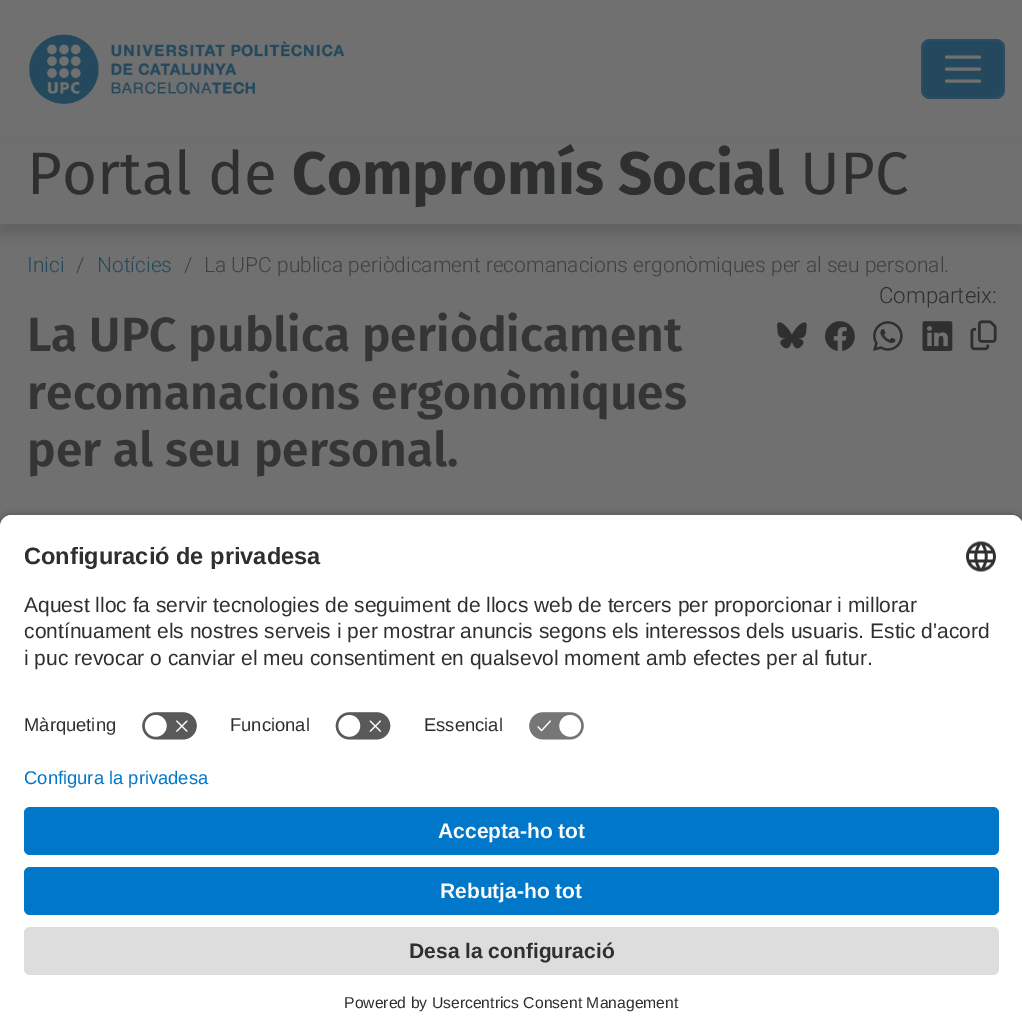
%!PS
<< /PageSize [1022 1034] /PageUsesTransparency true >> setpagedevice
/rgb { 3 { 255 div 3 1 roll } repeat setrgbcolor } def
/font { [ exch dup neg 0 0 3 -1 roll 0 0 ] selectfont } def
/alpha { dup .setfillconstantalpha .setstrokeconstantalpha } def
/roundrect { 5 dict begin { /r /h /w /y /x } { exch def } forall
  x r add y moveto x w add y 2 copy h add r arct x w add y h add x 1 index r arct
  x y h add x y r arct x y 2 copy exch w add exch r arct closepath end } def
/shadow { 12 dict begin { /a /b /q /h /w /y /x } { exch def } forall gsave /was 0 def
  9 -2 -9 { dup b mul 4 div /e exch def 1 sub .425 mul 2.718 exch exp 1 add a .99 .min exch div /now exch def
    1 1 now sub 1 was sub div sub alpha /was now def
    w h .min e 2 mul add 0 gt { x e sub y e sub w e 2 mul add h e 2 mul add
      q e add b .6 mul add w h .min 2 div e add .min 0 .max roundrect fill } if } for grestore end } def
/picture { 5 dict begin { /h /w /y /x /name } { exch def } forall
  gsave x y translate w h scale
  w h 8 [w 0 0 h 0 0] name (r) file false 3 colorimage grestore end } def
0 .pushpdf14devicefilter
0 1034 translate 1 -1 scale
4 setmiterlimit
112 112 112 rgb
0 0 1022 1034 rectfill
(img/1.rgb) 29 34 316 70 picture
36 73 94 rgb
921 39 84 60 9 roundrect fill
0.1 alpha
112 112 112 rgb
2 setlinewidth
922 40 82 58 8 roundrect stroke
1 alpha
3 setlinewidth
1 setlinecap
946.5 57 moveto 979.5 57 lineto 946.5 69 moveto 979.5 69 lineto 946.5 81 moveto 979.5 81 lineto stroke
36 36 36 rgb
0 149 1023 85 0 6 0.2 shadow
112 112 112 rgb
0 143 1022 81 rectfill
(img/2.rgb) 777 322 30 27 picture
(img/3.rgb) 825 321 30 30 picture
(img/4.rgb) 873 321 30 30 picture
(img/5.rgb) 922 321 31 30 picture
(img/6.rgb) 970 320 27 31 picture
0 0 0 rgb
0 519 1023 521 12 5 0.8 shadow
255 255 255 rgb
12 515 moveto 1011 515 lineto 1017.5 515 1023 520.5 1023 527 curveto 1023 768 lineto 0 768 lineto 0 527 lineto 0 520.5 5.5 515 12 515 curveto closepath fill
12 515 moveto 1011 515 lineto 1017.5 515 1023 520.5 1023 527 curveto 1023 702 lineto 0 702 lineto 0 527 lineto 0 520.5 5.5 515 12 515 curveto closepath fill
(img/7.rgb) 966 541 30 31 picture
(img/8.rgb) 142 712 55 28 picture
(img/9.rgb) 335 712 56 28 picture
(img/10.rgb) 529 712 55 28 picture
0 768 1022 266 rectfill
0 119 200 rgb
24 807 975 48 6 roundrect fill
24 867 975 48 6 roundrect fill
221 221 221 rgb
24 927 975 48 6 roundrect fill
/FiraSans-Regular 60 font
46 47 48 rgb
27 194 moveto (Portal de) show
/FiraSans-Bold 60 font
292 194 moveto (Compromís Social) show
/FiraSans-Regular 60 font
800 194 moveto (UPC) show
/Roboto-Light 21 font
36 73 89 rgb
27 272 moveto (Inici) show
62 63 64 rgb
76 272 moveto (/) show
36 73 89 rgb
97 272 moveto (Notícies) show
62 63 64 rgb
184 272 moveto (/) show
204 272 moveto (La UPC publica periòdicament recomanacions ergonòmiques per al seu personal.) show
/Roboto-Light 22.25 font
46 47 48 rgb
879 303 moveto (Comparteix:) show
/FiraSans-SemiBold 48 font
51 53 55 rgb
[
  [(La UPC publica periòdicament) 27 351]
  [(recomanacions ergonòmiques) 27 409]
  [(per al seu personal.) 27 466]
] { aload pop moveto show } forall
/LiberationSans-Bold 23.6 font
46 47 48 rgb
24 564 moveto (Configuració de privadesa) show
/LiberationSans-Regular 21 font
[
  [(Aquest lloc fa servir tecnologies de seguiment de llocs web de tercers per proporcionar i millorar) 24 612]
  [(contínuament els nostres serveis i per mostrar anuncis segons els interessos dels usuaris. Estic d'acord) 24 638]
  [(i puc revocar o canviar el meu consentiment en qualsevol moment amb efectes per al futur.) 24 665]
] { aload pop moveto show } forall
/LiberationSans-Regular 18.4 font
[
  [(Màrqueting) 24 731]
  [(Funcional) 230 731]
  [(Essencial) 424 731]
] { aload pop moveto show } forall
0 119 200 rgb
24 784 moveto (Configura la privadesa) show
/LiberationSans-Bold 21 font
250 250 250 rgb
438 838 moveto (Accepta-ho tot) show
440 898 moveto (Rebutja-ho tot) show
46 47 48 rgb
409 958 moveto (Desa la configuració) show
/LiberationSans-Regular 15.75 font
344 1008 moveto (Powered by Usercentrics Consent Management) show
.poppdf14devicefilter showpage
